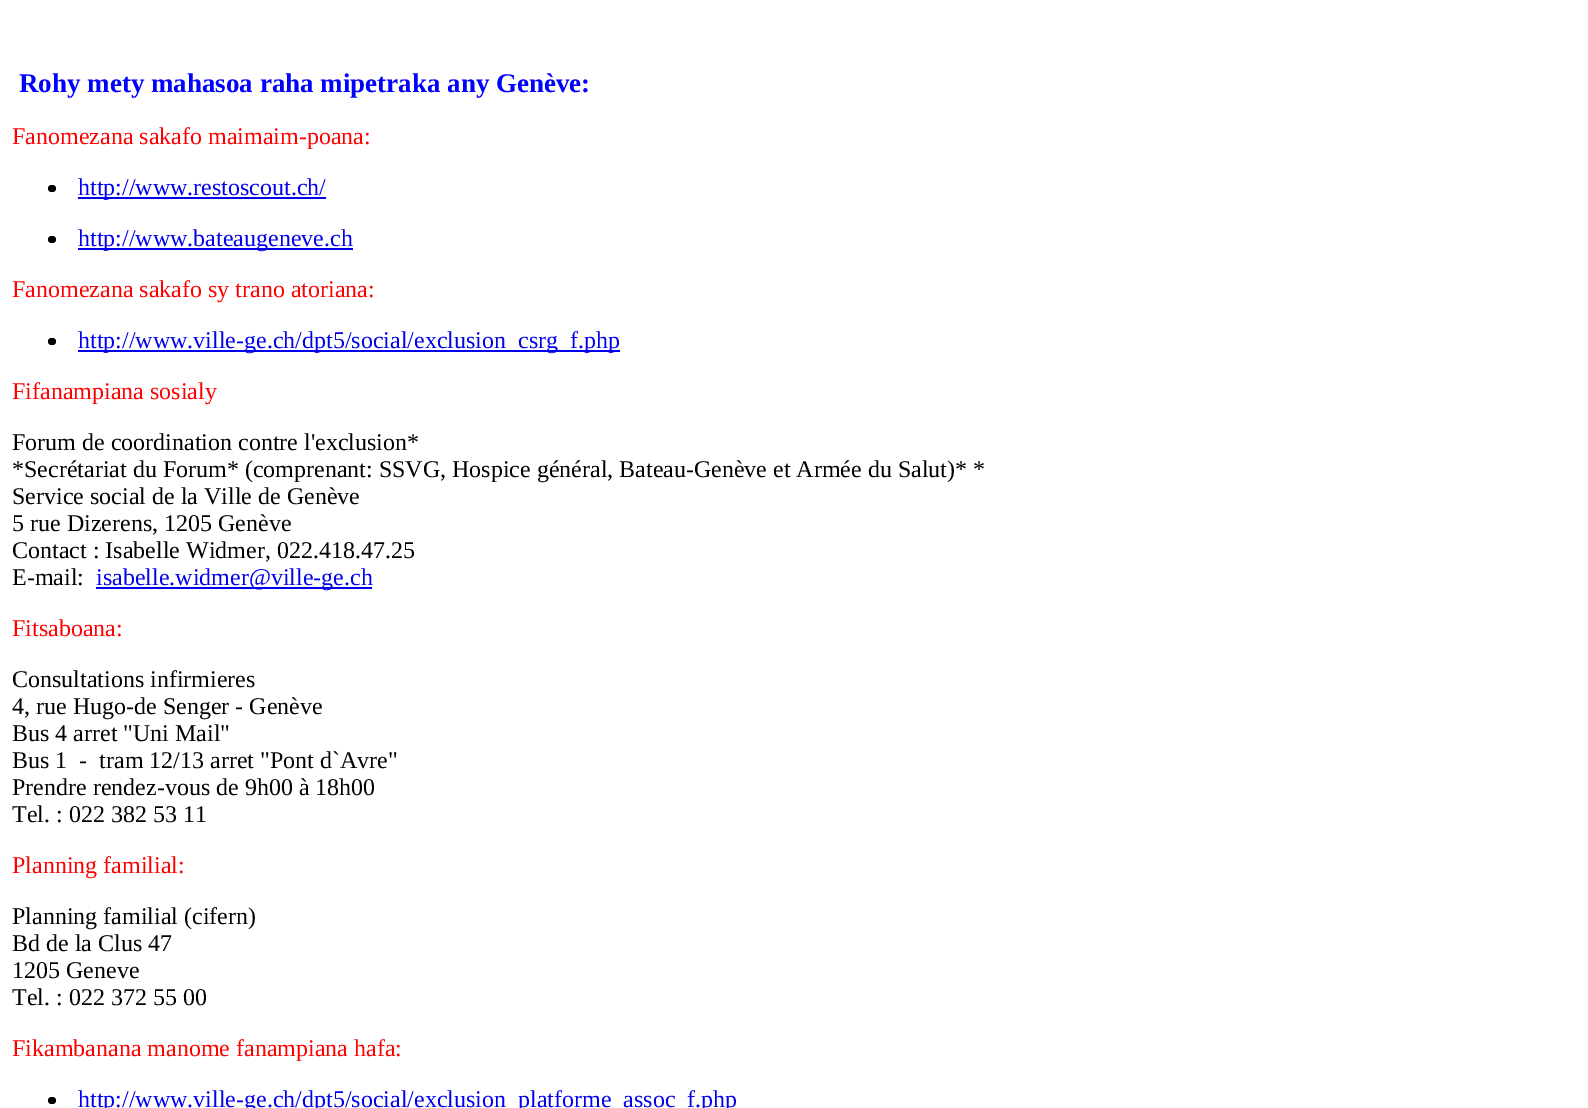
%!PS
<< /PageSize [1588 1108] >> setpagedevice
/rgb { 3 { 255 div 3 1 roll } repeat setrgbcolor } def
/font { [ exch dup neg 0 0 3 -1 roll 0 0 ] selectfont } def
/roundrect { 5 dict begin { /r /h /w /y /x } { exch def } forall
  x r add y moveto x w add y 2 copy h add r arct x w add y h add x 1 index r arct
  x y h add x y r arct x y 2 copy exch w add exch r arct closepath end } def
0 1108 translate 1 -1 scale
4 setmiterlimit
255 255 255 rgb
0 0 1588 1108 rectfill
0 0 0 rgb
48 185 8 7 3.5 roundrect fill
0 0 238 rgb
78 197 248 2 rectfill
0 0 0 rgb
48 236 8 7 3.5 roundrect fill
0 0 238 rgb
78 248 275 2 rectfill
0 0 0 rgb
48 338 8 7 3.5 roundrect fill
0 0 238 rgb
78 350 542 2 rectfill
96 587 276 2 rectfill
0 0 0 rgb
48 1097 8 7 3.5 roundrect fill
/LiberationSerif-Bold 27 font
0 0 255 rgb
19 92 moveto (Rohy mety mahasoa raha mipetraka any Genève:) show
/LiberationSerif-Regular 24 font
255 0 0 rgb
12 144 moveto (Fanomezana sakafo maimaim-poana:) show
0 0 238 rgb
78 195 moveto (http://www.restoscout.ch/) show
78 246 moveto (http://www.bateaugeneve.ch) show
255 0 0 rgb
12 297 moveto (Fanomezana sakafo sy trano atoriana:) show
0 0 238 rgb
78 348 moveto (http://www.ville-ge.ch/dpt5/social/exclusion_csrg_f.php) show
255 0 0 rgb
12 399 moveto (Fifanampiana sosialy) show
0 0 0 rgb
[
  [(Forum de coordination contre l'exclusion*) 12 450]
  [(*Secrétariat du Forum* \(comprenant: SSVG, Hospice général, Bateau-Genève et Armée du Salut\)* *) 12 477]
  [(Service social de la Ville de Genève) 12 504]
  [(5 rue Dizerens, 1205 Genève) 12 531]
  [(Contact : Isabelle Widmer, 022.418.47.25) 12 558]
  [(E-mail:) 12 585]
] { aload pop moveto show } forall
0 0 238 rgb
96 585 moveto (isabelle.widmer@ville-ge.ch) show
255 0 0 rgb
12 636 moveto (Fitsaboana:) show
0 0 0 rgb
[
  [(Consultations infirmieres) 12 687]
  [(4, rue Hugo-de Senger - Genève) 12 714]
  [(Bus 4 arret "Uni Mail") 12 741]
  [(Bus 1  -  tram 12/13 arret "Pont d`Avre") 12 768]
  [(Prendre rendez-vous de 9h00 à 18h00) 12 795]
  [(Tel. : 022 382 53 11) 12 822]
] { aload pop moveto show } forall
255 0 0 rgb
12 873 moveto (Planning familial:) show
0 0 0 rgb
[
  [(Planning familial \(cifern\)) 12 924]
  [(Bd de la Clus 47) 12 951]
  [(1205 Geneve) 12 978]
  [(Tel. : 022 372 55 00) 12 1005]
] { aload pop moveto show } forall
255 0 0 rgb
12 1056 moveto (Fikambanana manome fanampiana hafa:) show
0 0 238 rgb
78 1107 moveto (http://www.ville-ge.ch/dpt5/social/exclusion_platforme_assoc_f.php) show
showpage
